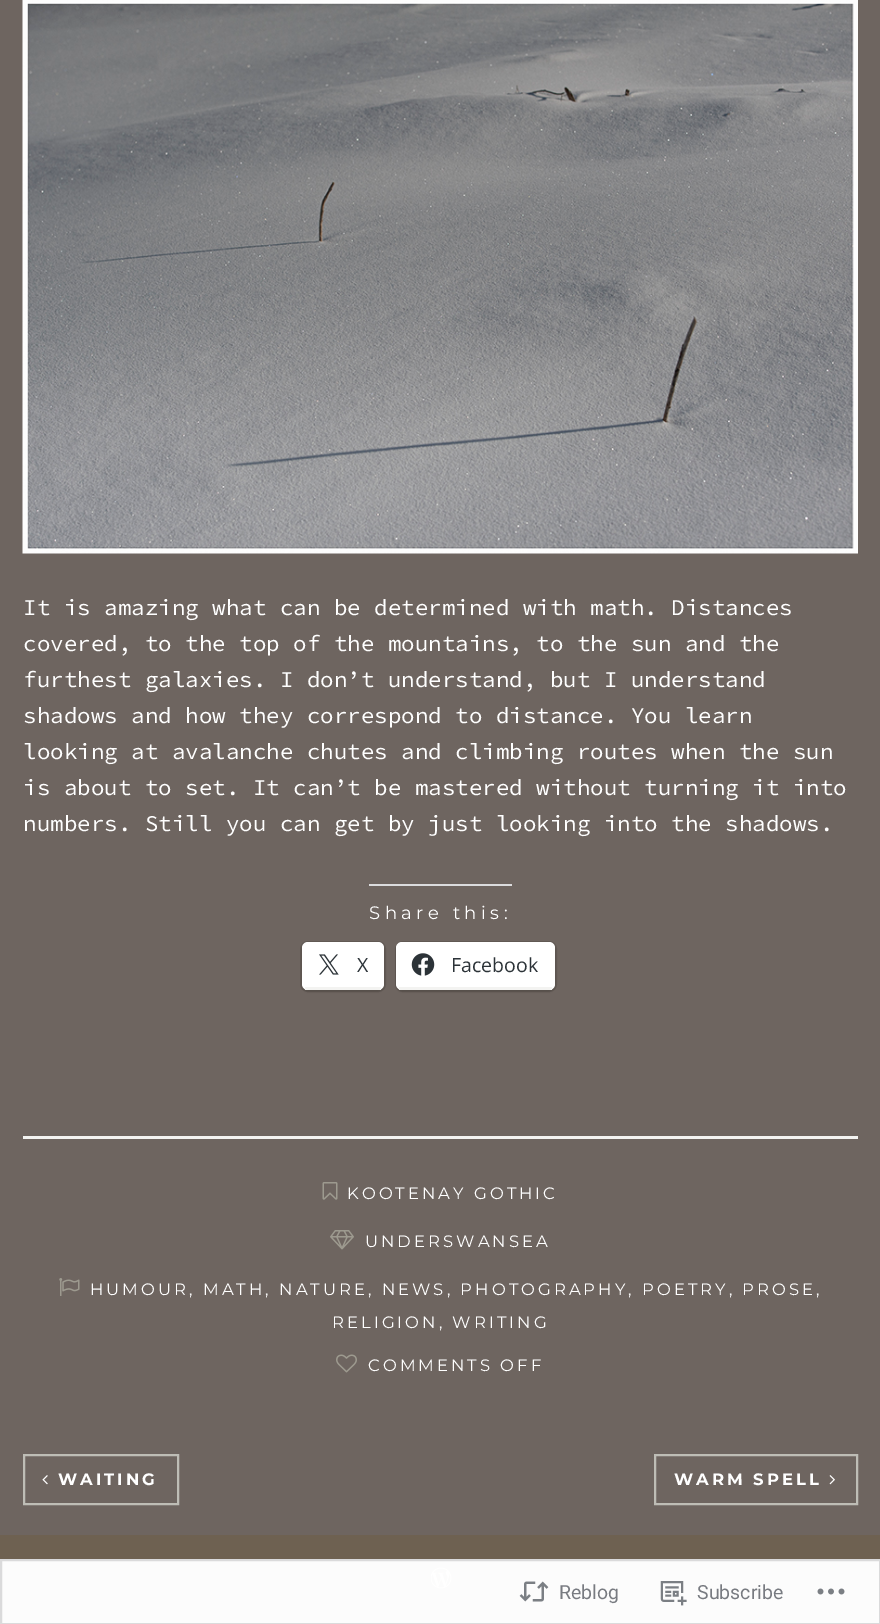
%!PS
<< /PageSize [880 1624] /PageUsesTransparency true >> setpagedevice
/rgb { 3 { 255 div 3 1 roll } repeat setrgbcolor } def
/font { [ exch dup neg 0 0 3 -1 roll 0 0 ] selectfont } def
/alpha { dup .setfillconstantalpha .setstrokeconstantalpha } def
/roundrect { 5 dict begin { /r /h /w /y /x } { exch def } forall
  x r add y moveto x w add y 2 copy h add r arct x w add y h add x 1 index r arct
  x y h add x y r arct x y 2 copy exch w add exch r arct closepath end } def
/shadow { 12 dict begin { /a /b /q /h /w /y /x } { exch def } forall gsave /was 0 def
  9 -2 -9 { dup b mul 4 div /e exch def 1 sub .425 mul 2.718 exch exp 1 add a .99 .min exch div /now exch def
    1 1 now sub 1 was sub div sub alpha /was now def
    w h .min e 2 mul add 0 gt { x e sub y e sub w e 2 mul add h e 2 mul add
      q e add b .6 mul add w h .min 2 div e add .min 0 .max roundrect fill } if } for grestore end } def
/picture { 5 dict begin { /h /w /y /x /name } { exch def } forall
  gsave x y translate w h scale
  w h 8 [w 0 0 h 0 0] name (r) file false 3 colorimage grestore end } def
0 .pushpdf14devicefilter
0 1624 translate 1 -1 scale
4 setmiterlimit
110 101 96 rgb
0 0 880 1624 rectfill
(img/1.rgb) 22 0 836 554 picture
220 220 222 rgb
369 884 143 2 rectfill
97 89 84 rgb
2 setlinewidth
301 942 84 49 7 roundrect stroke
0 0 0 rgb
302 944 82 48 6 1.5 0.12 shadow
255 255 255 rgb
302 942 82 48 6 roundrect fill
243 243 241 rgb
305 987 76 3 rectfill
(img/2.rgb) 319 954 20 21 picture
97 89 84 rgb
396 942 160 49 7 roundrect stroke
0 0 0 rgb
396 944 159 48 6 1.5 0.12 shadow
255 255 255 rgb
396 942 159 48 6 roundrect fill
243 243 241 rgb
399 987 153 3 rectfill
(img/3.rgb) 411 953 24 23 picture
23 1136 835 3 rectfill
(img/4.rgb) 322 1182 16 18 picture
(img/5.rgb) 330 1230 24 20 picture
(img/6.rgb) 59 1278 21 18 picture
(img/7.rgb) 336 1354 21 19 picture
190 189 182 rgb
24 1455 154 49 rectstroke
(img/8.rgb) 42 1475 6 10 picture
655 1455 202 49 rectstroke
(img/9.rgb) 829 1475 6 10 picture
110 97 81 rgb
0 1535 880 24 rectfill
252 252 252 rgb
2 1561 877 62 rectfill
(img/10.rgb) 431 1567 21 22 picture
218 218 219 rgb
1 1560 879 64 rectstroke
(img/11.rgb) 519 1581 30 21 picture
(img/12.rgb) 660 1581 27 25 picture
(img/13.rgb) 817 1588 28 7 picture
/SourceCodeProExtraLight-Regular 22.5 font
255 255 255 rgb
[
  [(It is amazing what can be determined with math. Distances) 23 615]
  [(covered, to the top of the mountains, to the sun and the) 23 651]
  [(furthest galaxies. I don’t understand, but I understand) 23 687]
  [(shadows and how they correspond to distance. You learn) 23 723]
  [(looking at avalanche chutes and climbing routes when the sun) 23 759]
  [(is about to set. It can’t be mastered without turning it into) 23 795]
  [(numbers. Still you can get by just looking into the shadows.) 23 831]
] { aload pop moveto show } forall
/Montserrat-Regular 18 font
369 919 moveto 4.5 0 (Share this:) ashow
/OpenSans-Regular 19.5 font
44 51 56 rgb
357 972 moveto (X) show
451 972 moveto (Facebook) show
/Montserrat-Regular 16.5 font
255 255 255 rgb
347 1199 moveto 3 0 (KOOTENAY GOTHIC) ashow
365 1247 moveto 3 0 (UNDERSWANSEA) ashow
90 1295 moveto 3 0 (HUMOUR, MATH, NATURE, NEWS, PHOTOGRAPHY, POETRY, PROSE,) ashow
332 1328 moveto 3 0 (RELIGION, WRITING) ashow
368 1371 moveto 3 0 (COMMENTS OFF) ashow
/Montserrat-Bold 16.5 font
58 1485 moveto 3 0 (WAITING) ashow
674 1485 moveto 3 0 (WARM SPELL) ashow
/Roboto-Regular 19.5 font
120 123 129 rgb
559 1599 moveto (Reblog) show
697 1599 moveto (Subscribe) show
.poppdf14devicefilter showpage
